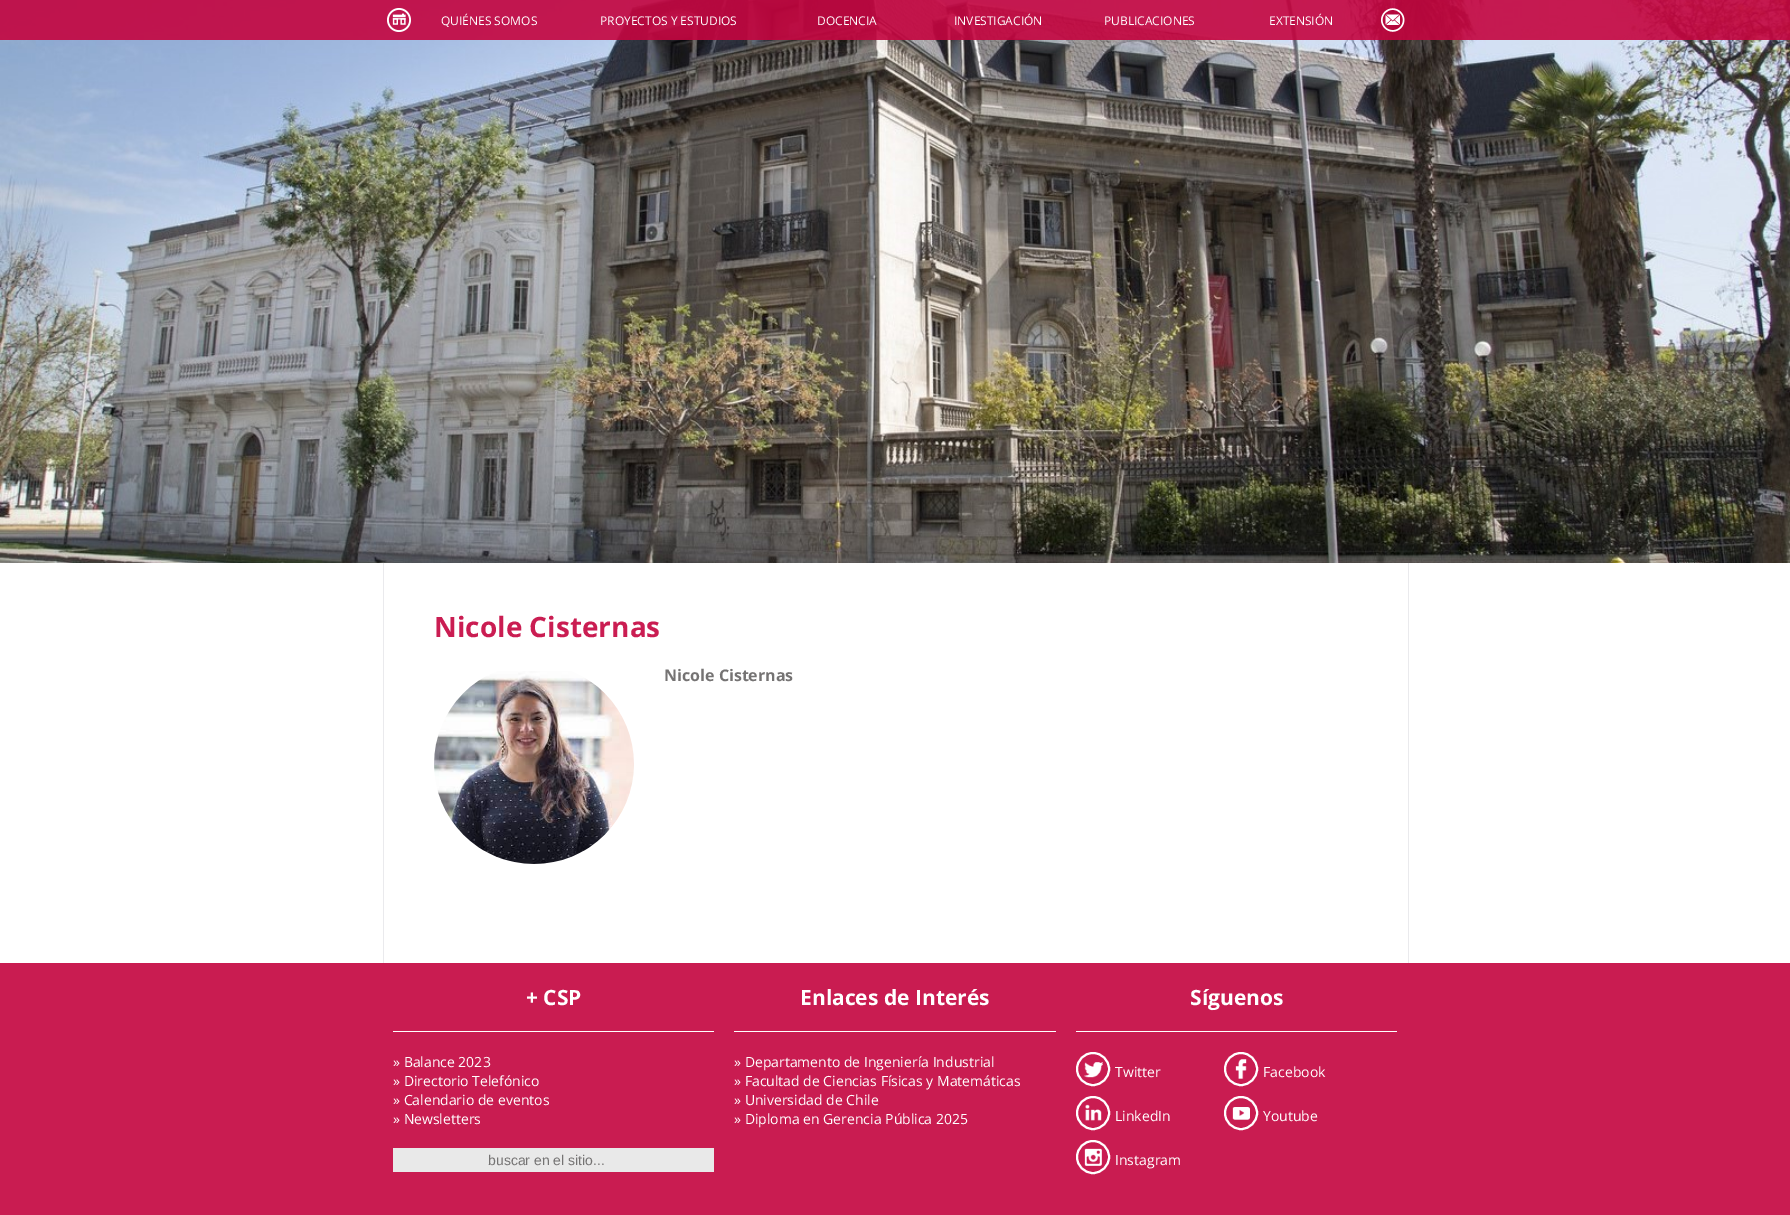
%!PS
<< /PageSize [1790 1215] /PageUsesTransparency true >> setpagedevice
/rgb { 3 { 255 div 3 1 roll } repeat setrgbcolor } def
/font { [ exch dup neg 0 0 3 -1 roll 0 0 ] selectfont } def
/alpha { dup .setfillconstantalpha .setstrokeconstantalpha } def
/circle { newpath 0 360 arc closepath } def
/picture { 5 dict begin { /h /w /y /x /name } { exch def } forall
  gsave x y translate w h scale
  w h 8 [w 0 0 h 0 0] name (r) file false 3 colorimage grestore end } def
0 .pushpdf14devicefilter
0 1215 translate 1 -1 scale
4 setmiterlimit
255 255 255 rgb
0 0 1790 1215 rectfill
(img/1.rgb) 0 0 1790 563 picture
0.9 alpha
196 4 63 rgb
0 0 1790 40 rectfill
1 alpha
(img/2.rgb) 387 8 24 24 picture
(img/3.rgb) 1381 8 24 24 picture
234 234 237 rgb
1408 563 1 400 rectfill
383 563 1 400 rectfill
(img/4.rgb) 434 671 200 193 picture
[
  [0 963 1790 252 201 28 81]
  [393 1031 321 1 255 255 255]
  [393 1148 321 24 233 233 233]
  [734 1031 322 1 255 255 255]
  [1076 1031 321 1 255 255 255]
] { aload pop rgb rectfill } forall
(img/5.rgb) 1084 1062 19 16 picture
2 setlinewidth
1093 1069 16 circle stroke
(img/6.rgb) 1235 1059 12 20 picture
1241 1069 16 circle stroke
(img/7.rgb) 1085 1104 17 17 picture
1093 1113 16 circle stroke
(img/8.rgb) 1232 1107 18 13 picture
1241 1113 16 circle stroke
(img/9.rgb) 1084 1148 18 18 picture
1093 1157 16 circle stroke
/OpenSans-Regular 12 font
[
  [(QUIÉNES SOMOS) 441 25]
  [(PROYECTOS Y ESTUDIOS) 600 25]
  [(DOCENCIA) 817 25]
  [(INVESTIGACIÓN) 954 25]
  [(PUBLICACIONES) 1104 25]
  [(EXTENSIÓN) 1269 25]
] { aload pop moveto show } forall
/OpenSans-Bold 28 font
202 29 82 rgb
434 637 moveto (Nicole Cisternas) show
/OpenSans-Bold 16 font
117 115 115 rgb
664 681 moveto (Nicole Cisternas) show
/OpenSans-Bold 21 font
255 255 255 rgb
526 1005 moveto (+ CSP) show
/OpenSans-Regular 14 font
[
  [(» Balance 2023) 393 1067]
  [(» Directorio Telefónico) 393 1086]
  [(» Calendario de eventos) 393 1105]
  [(» Newsletters) 393 1124]
] { aload pop moveto show } forall
/LiberationSans-Regular 14 font
117 115 115 rgb
488 1165 moveto (buscar en el sitio...) show
/OpenSans-Bold 21 font
255 255 255 rgb
800 1005 moveto (Enlaces de Interés) show
/OpenSans-Regular 14 font
[
  [(» Departamento de Ingeniería Industrial) 734 1067]
  [(» Facultad de Ciencias Físicas y Matemáticas) 734 1086]
  [(» Universidad de Chile) 734 1105]
  [(» Diploma en Gerencia Pública 2025) 734 1124]
] { aload pop moveto show } forall
/OpenSans-Bold 21 font
1190 1005 moveto (Síguenos) show
/OpenSans-Regular 14 font
[
  [(Twitter) 1115 1077]
  [(Facebook) 1263 1077]
  [(LinkedIn) 1115 1121]
  [(Youtube) 1263 1121]
  [(Instagram) 1115 1165]
] { aload pop moveto show } forall
.poppdf14devicefilter showpage
